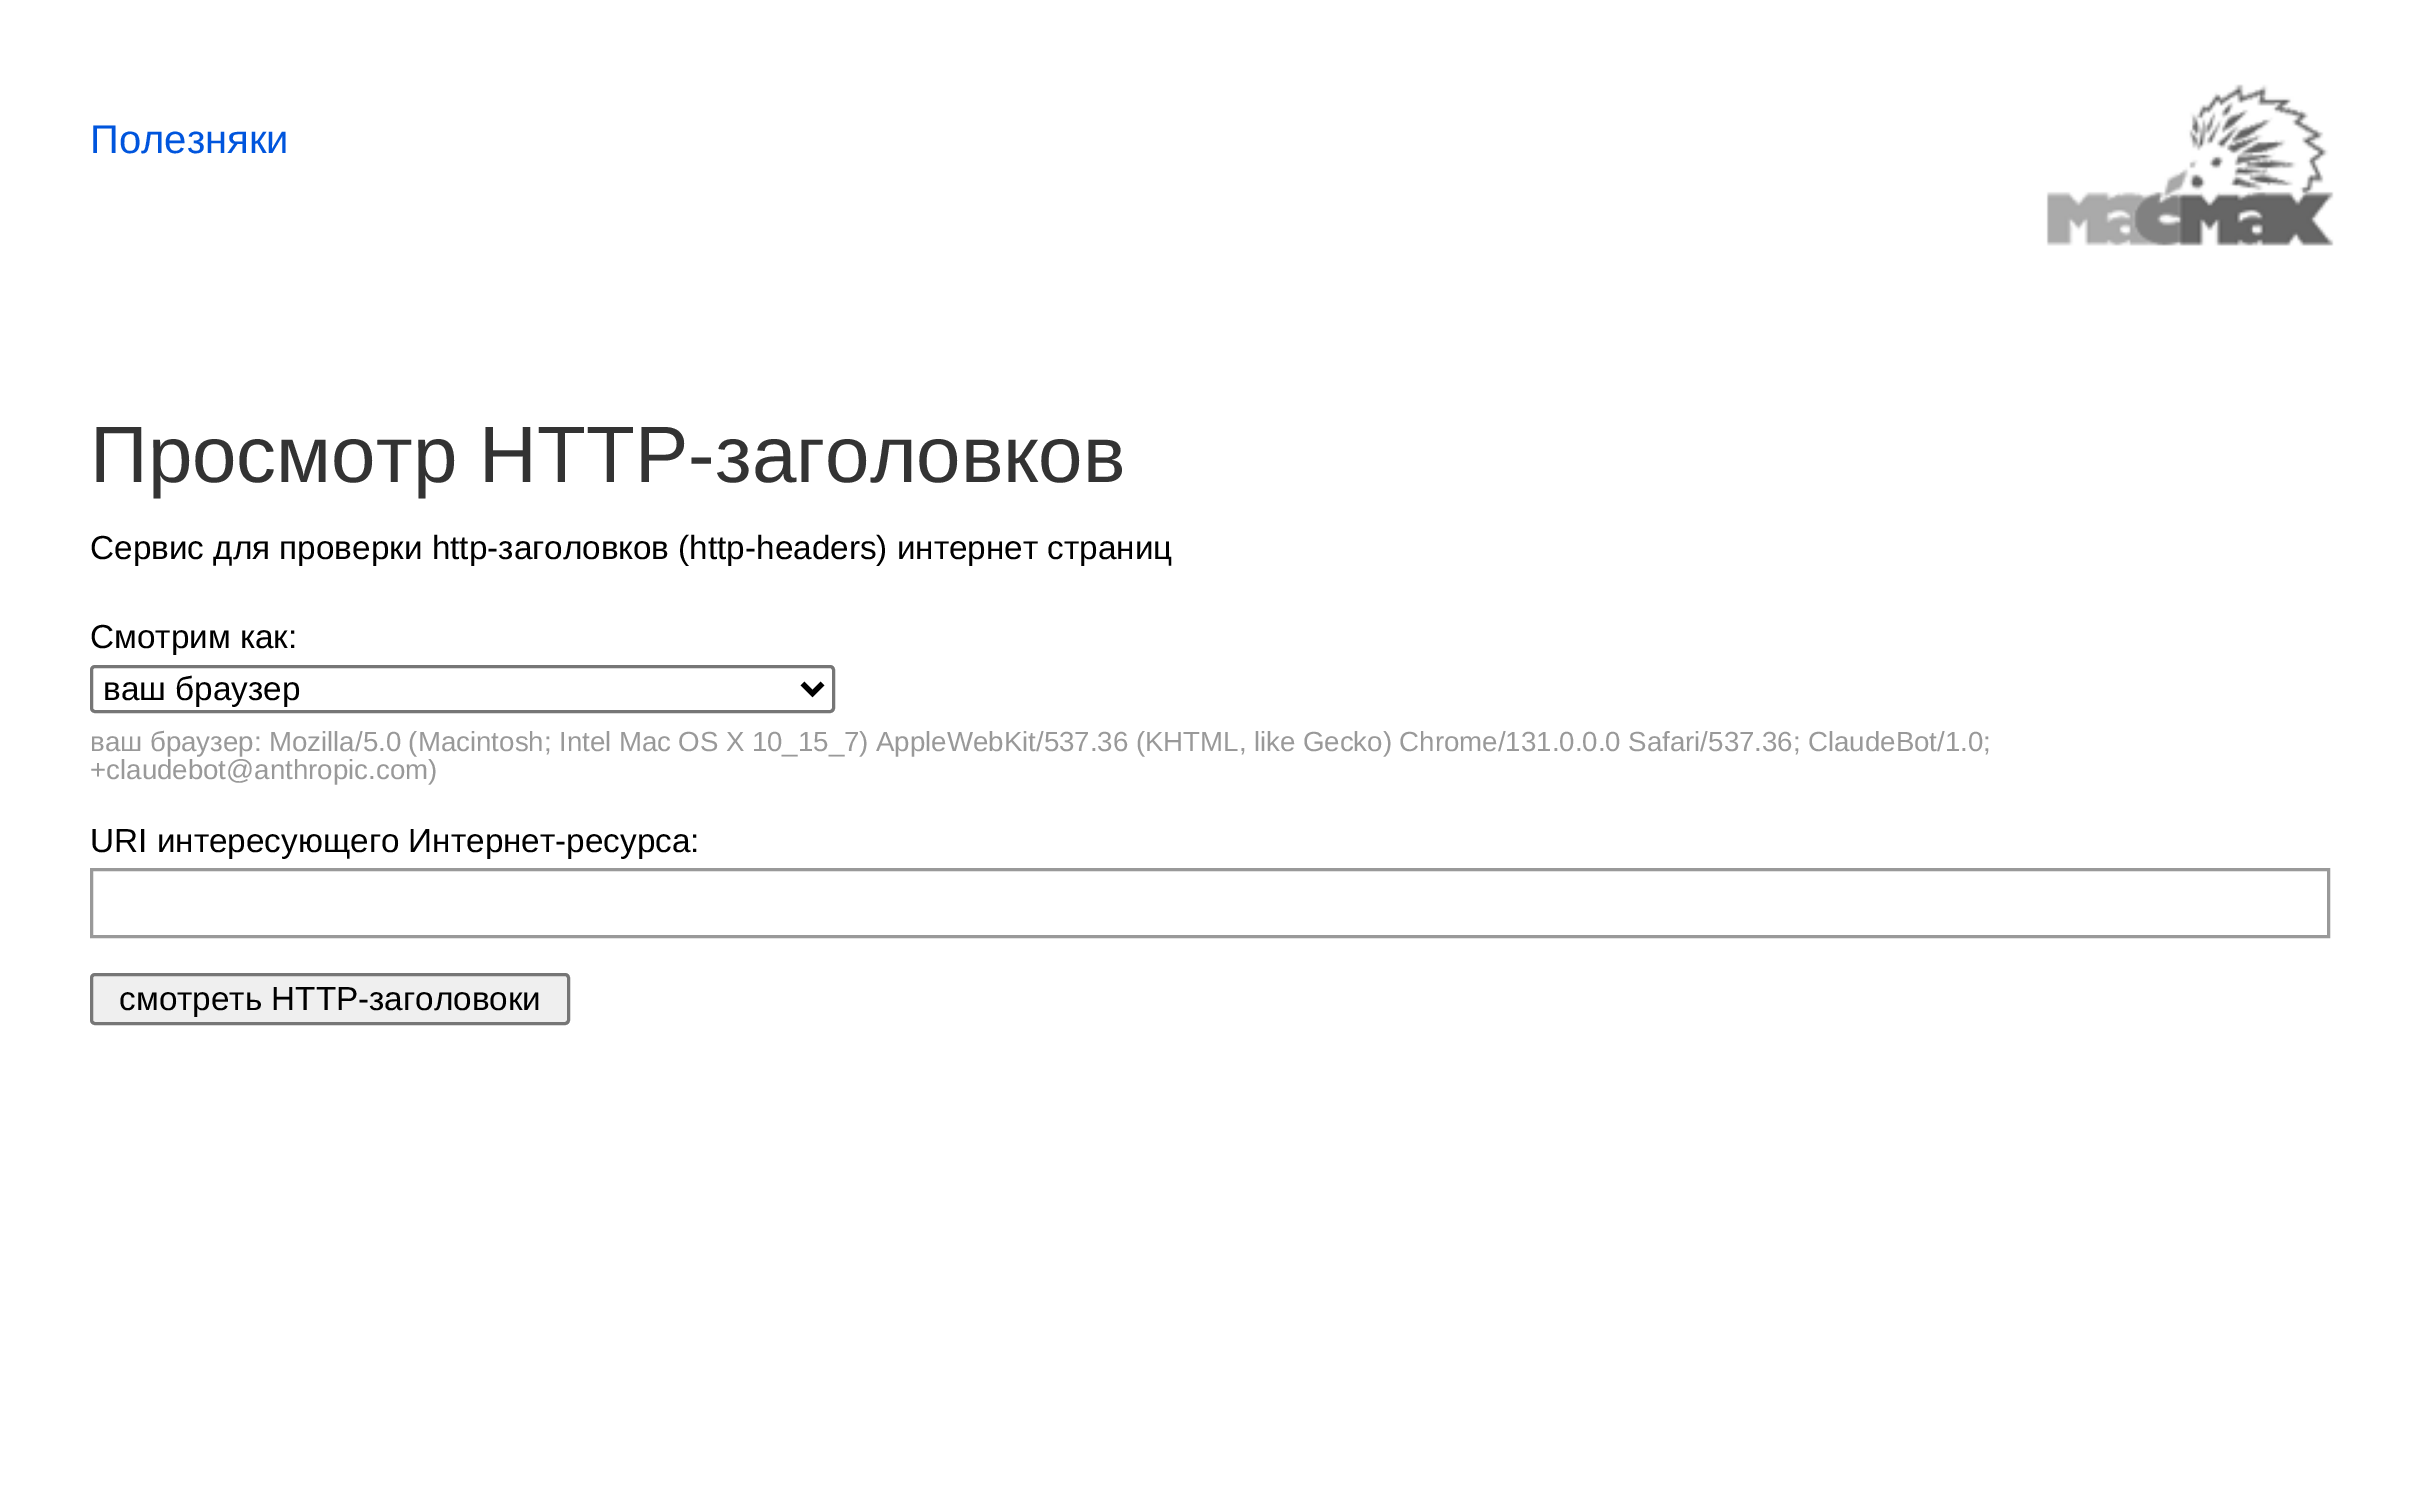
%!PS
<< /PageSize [2428 1488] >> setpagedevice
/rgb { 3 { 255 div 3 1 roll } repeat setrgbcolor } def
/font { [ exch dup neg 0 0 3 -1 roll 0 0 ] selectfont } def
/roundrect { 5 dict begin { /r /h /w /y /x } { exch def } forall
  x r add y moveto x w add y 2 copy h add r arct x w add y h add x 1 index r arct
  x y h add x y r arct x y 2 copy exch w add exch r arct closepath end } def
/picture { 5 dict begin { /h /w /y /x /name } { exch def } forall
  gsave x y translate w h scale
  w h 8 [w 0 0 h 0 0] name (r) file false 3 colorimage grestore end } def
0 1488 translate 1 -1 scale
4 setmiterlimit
255 255 255 rgb
0 0 2428 1488 rectfill
(img/1.rgb) 2046 84 288 162 picture
118 118 118 rgb
3 setlinewidth
91.5 666.5 742 45 3.5 roundrect stroke
0 0 0 rgb
5 setlinewidth
802.5 683.5 moveto 812.5 693.5 lineto 822.5 683.5 lineto stroke
153 153 153 rgb
3 setlinewidth
91.5 869.5 2237 67 rectstroke
239 239 239 rgb
91.5 974.5 477 49 3.5 roundrect gsave fill grestore
118 118 118 rgb
stroke
/LiberationSans-Regular 40 font
0 85 221 rgb
90 153 moveto (Полезняки) show
/LiberationSans-Regular 80 font
51 51 51 rgb
90 482 moveto (Просмотр HTTP-заголовков) show
/LiberationSans-Regular 33.3 font
0 0 0 rgb
[
  [(Сервис для проверки http-заголовков \(http-headers\) интернет страниц) 90 559]
  [(Смотрим как:) 90 648]
  [(ваш браузер) 103 700]
] { aload pop moveto show } forall
/LiberationSans-Regular 27.67 font
153 153 153 rgb
90 751 moveto -0.25 0 32 (ваш браузер: Mozilla/5.0 \(Macintosh; Intel Mac OS X 10_15_7\) AppleWebKit/537.36 \(KHTML, like Gecko\) Chrome/131.0.0.0 Safari/537.36; ClaudeBot/1.0;) widthshow
90 779 moveto (+claudebot@anthropic.com\)) show
/LiberationSans-Regular 33.3 font
0 0 0 rgb
90 852 moveto (URI интересующего Интернет-ресурса:) show
119 1010 moveto (смотреть HTTP-заголовоки) show
showpage
